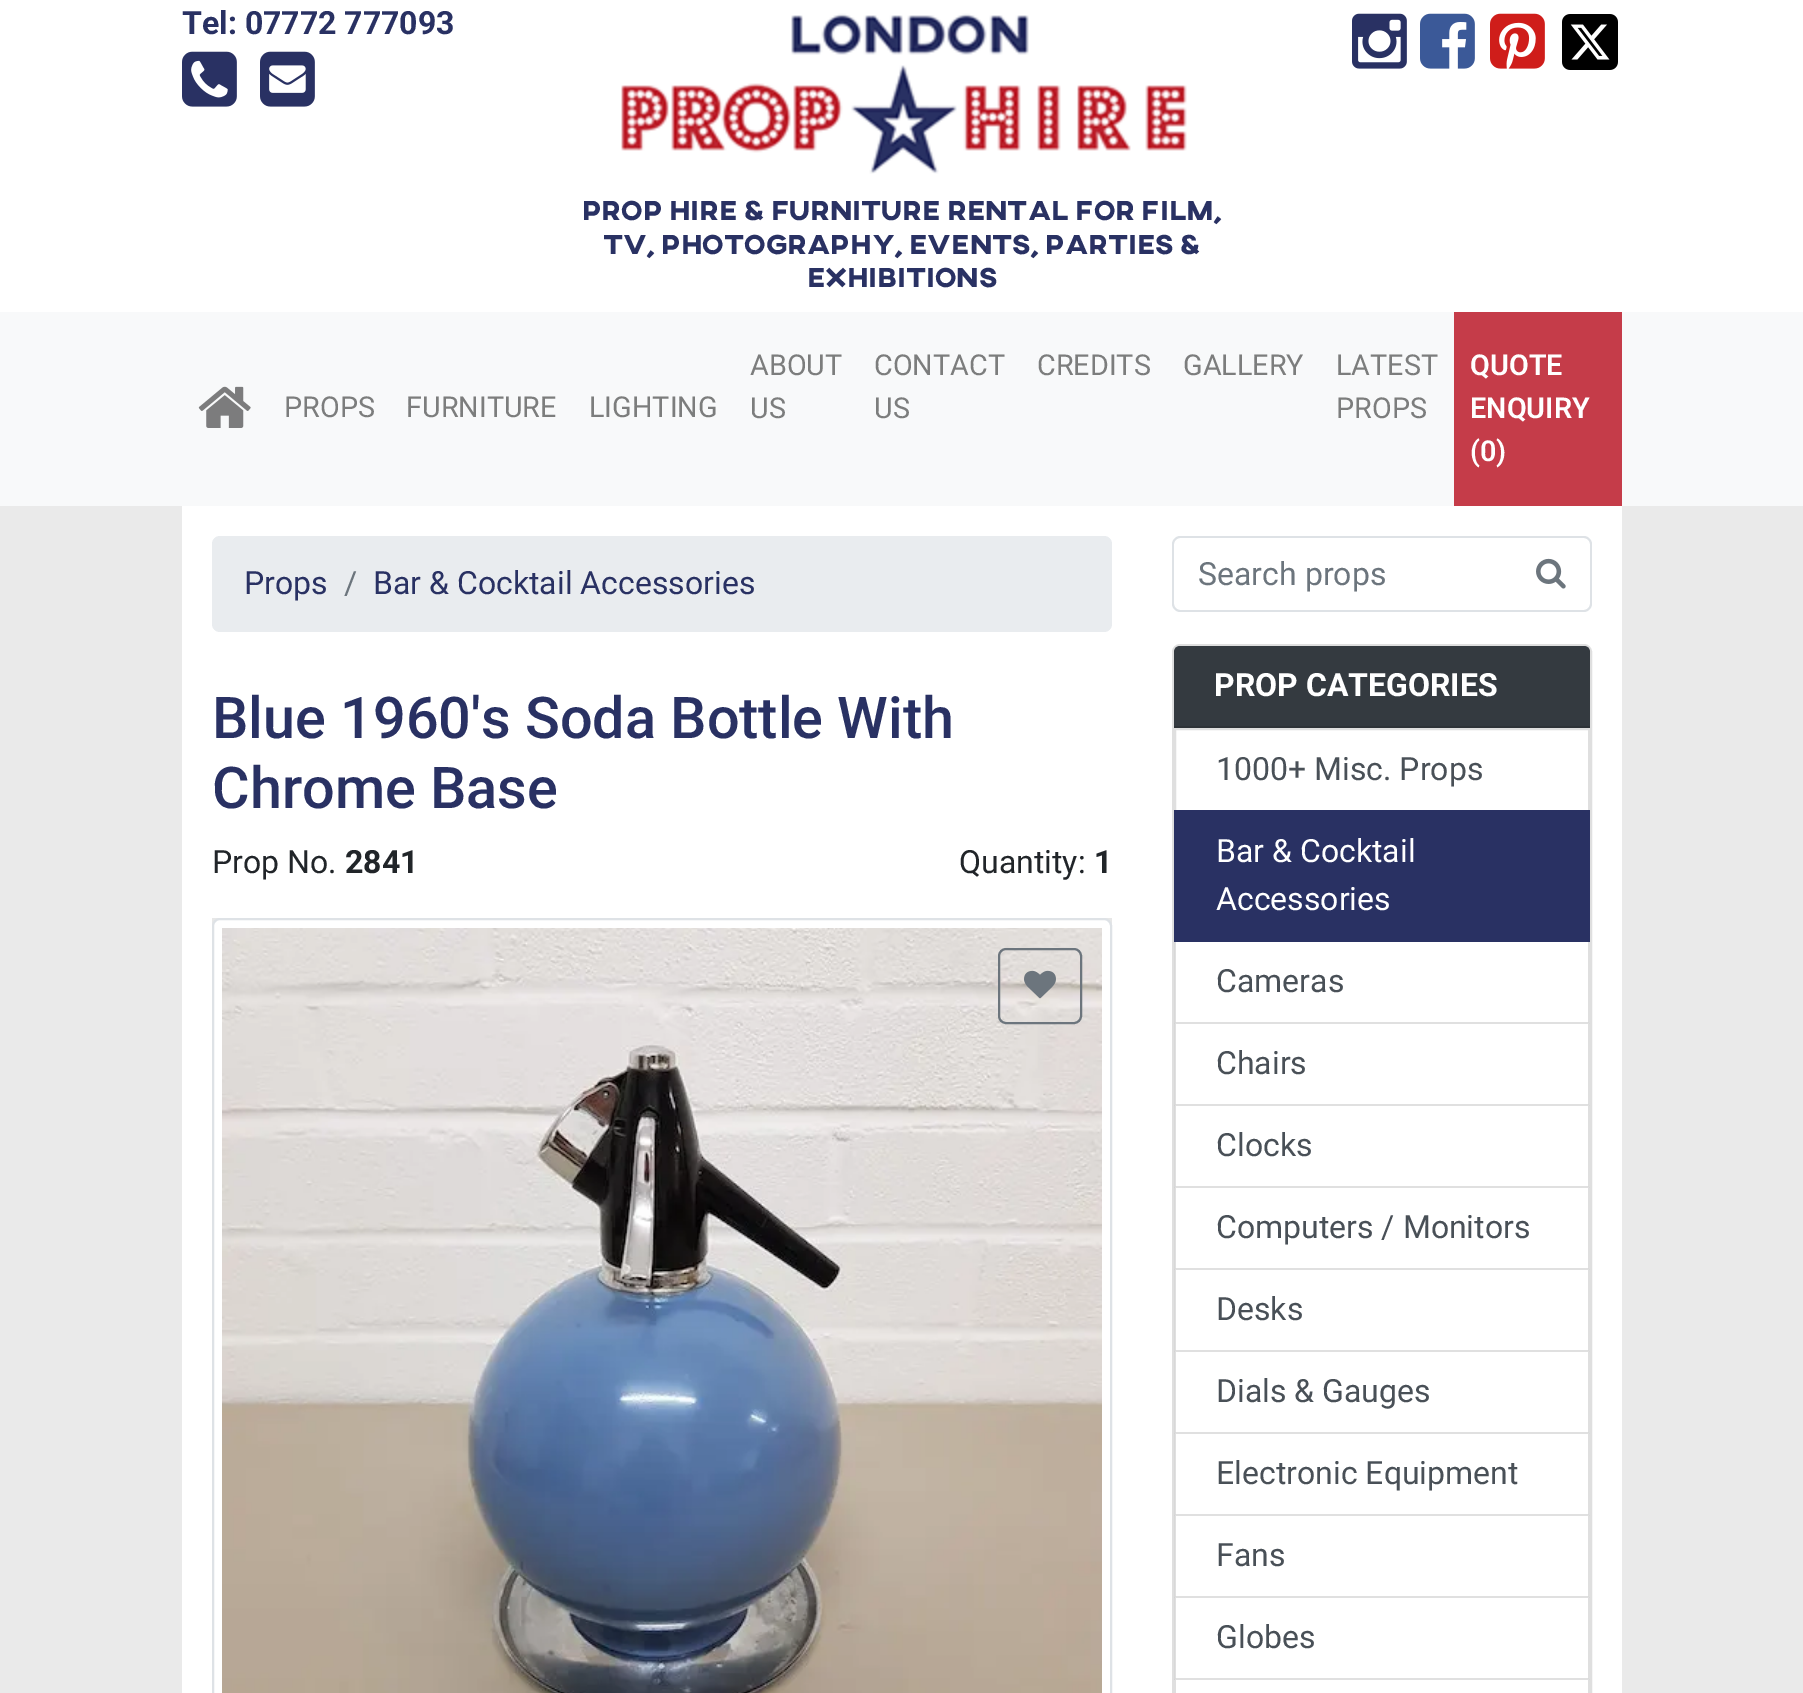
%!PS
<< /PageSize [1803 1693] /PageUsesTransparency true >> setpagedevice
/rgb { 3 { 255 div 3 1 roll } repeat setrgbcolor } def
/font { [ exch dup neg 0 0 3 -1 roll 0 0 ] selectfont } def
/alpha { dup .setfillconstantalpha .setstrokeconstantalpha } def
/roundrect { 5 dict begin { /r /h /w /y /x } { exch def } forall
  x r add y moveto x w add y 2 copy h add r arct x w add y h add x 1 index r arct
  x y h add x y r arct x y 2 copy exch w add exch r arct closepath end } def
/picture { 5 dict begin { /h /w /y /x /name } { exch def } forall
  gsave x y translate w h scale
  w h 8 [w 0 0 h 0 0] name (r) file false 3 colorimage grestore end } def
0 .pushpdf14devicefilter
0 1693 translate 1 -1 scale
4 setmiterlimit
234 234 234 rgb
0 0 1803 1693 rectfill
255 255 255 rgb
0 0 1803 312 rectfill
(img/1.rgb) 182 51 55 56 picture
(img/2.rgb) 260 51 55 56 picture
(img/3.rgb) 1352 13 55 56 picture
(img/4.rgb) 1420 13 55 56 picture
(img/5.rgb) 1490 13 55 56 picture
(img/6.rgb) 1562 14 56 56 picture
(img/7.rgb) 621 13 566 161 picture
248 249 250 rgb
0 312 1803 194 rectfill
(img/8.rgb) 198 386 53 42 picture
197 60 73 rgb
1454 312 168 194 rectfill
255 255 255 rgb
182 506 1440 1187 rectfill
233 236 239 rgb
212 536 900 96 8 roundrect fill
231 231 231 rgb
212 918 900 8 rectfill
255 255 255 rgb
213 919 898 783 7 roundrect gsave fill grestore
222 226 230 rgb
2 setlinewidth
stroke
(img/9.rgb) 222 928 880 765 picture
108 117 125 rgb
999 949 82 74 7 roundrect stroke
(img/10.rgb) 1024 970 32 29 picture
222 226 230 rgb
1180 536 moveto 1514 536 lineto 1514 612 lineto 1180 612 lineto 1176 612 1172 608 1172 604 curveto 1172 544 lineto 1172 540 1176 536 1180 536 curveto closepath 1180 538 moveto 1514 538 lineto 1514 610 lineto 1180 610 lineto 1177 610 1174 607 1174 604 curveto 1174 544 lineto 1174 541 1177 538 1180 538 curveto closepath eofill
1512 536 moveto 1584 536 lineto 1588 536 1592 540 1592 544 curveto 1592 604 lineto 1592 608 1588 612 1584 612 curveto 1512 612 lineto closepath 1512 538 moveto 1584 538 lineto 1587 538 1590 541 1590 544 curveto 1590 604 lineto 1590 607 1587 610 1584 610 curveto 1512 610 lineto closepath eofill
(img/11.rgb) 1536 558 30 31 picture
223 223 223 rgb
1173 645 418 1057 7 roundrect stroke
52 58 64 rgb
1180 646 moveto 1584 646 lineto 1587.5 646 1590 648.5 1590 652 curveto 1590 728 lineto 1174 728 lineto 1174 652 lineto 1174 648.5 1176.5 646 1180 646 curveto closepath fill
46 51 56 rgb
1174 726 416 2 rectfill
223 223 223 rgb
1175 729 414 82 rectstroke
41 49 99 rgb
1174 810 416 132 rectfill
223 223 223 rgb
1590 942 moveto 1590 1024 lineto 1588 1022 lineto 1588 942 lineto closepath fill
0.12 alpha
0 0 0 rgb
1590 1024 moveto 1174 1024 lineto 1176 1022 lineto 1588 1022 lineto closepath fill
1174 1024 moveto 1174 942 lineto 1176 942 lineto 1176 1022 lineto closepath fill
1 alpha
223 223 223 rgb
1590 1024 moveto 1590 1106 lineto 1588 1104 lineto 1588 1024 lineto closepath fill
0.12 alpha
0 0 0 rgb
1590 1106 moveto 1174 1106 lineto 1176 1104 lineto 1588 1104 lineto closepath fill
1174 1106 moveto 1174 1024 lineto 1176 1024 lineto 1176 1104 lineto closepath fill
1 alpha
223 223 223 rgb
1590 1106 moveto 1590 1188 lineto 1588 1186 lineto 1588 1106 lineto closepath fill
0.12 alpha
0 0 0 rgb
1590 1188 moveto 1174 1188 lineto 1176 1186 lineto 1588 1186 lineto closepath fill
1174 1188 moveto 1174 1106 lineto 1176 1106 lineto 1176 1186 lineto closepath fill
1 alpha
223 223 223 rgb
1590 1188 moveto 1590 1270 lineto 1588 1268 lineto 1588 1188 lineto closepath fill
0.12 alpha
0 0 0 rgb
1590 1270 moveto 1174 1270 lineto 1176 1268 lineto 1588 1268 lineto closepath fill
1174 1270 moveto 1174 1188 lineto 1176 1188 lineto 1176 1268 lineto closepath fill
1 alpha
223 223 223 rgb
1590 1270 moveto 1590 1352 lineto 1588 1350 lineto 1588 1270 lineto closepath fill
0.12 alpha
0 0 0 rgb
1590 1352 moveto 1174 1352 lineto 1176 1350 lineto 1588 1350 lineto closepath fill
1174 1352 moveto 1174 1270 lineto 1176 1270 lineto 1176 1350 lineto closepath fill
1 alpha
223 223 223 rgb
1590 1352 moveto 1590 1434 lineto 1588 1432 lineto 1588 1352 lineto closepath fill
0.12 alpha
0 0 0 rgb
1590 1434 moveto 1174 1434 lineto 1176 1432 lineto 1588 1432 lineto closepath fill
1174 1434 moveto 1174 1352 lineto 1176 1352 lineto 1176 1432 lineto closepath fill
1 alpha
223 223 223 rgb
1590 1434 moveto 1590 1516 lineto 1588 1514 lineto 1588 1434 lineto closepath fill
0.12 alpha
0 0 0 rgb
1590 1516 moveto 1174 1516 lineto 1176 1514 lineto 1588 1514 lineto closepath fill
1174 1516 moveto 1174 1434 lineto 1176 1434 lineto 1176 1514 lineto closepath fill
1 alpha
223 223 223 rgb
1590 1516 moveto 1590 1598 lineto 1588 1596 lineto 1588 1516 lineto closepath fill
0.12 alpha
0 0 0 rgb
1590 1598 moveto 1174 1598 lineto 1176 1596 lineto 1588 1596 lineto closepath fill
1174 1598 moveto 1174 1516 lineto 1176 1516 lineto 1176 1596 lineto closepath fill
1 alpha
223 223 223 rgb
1590 1598 moveto 1590 1680 lineto 1588 1678 lineto 1588 1598 lineto closepath fill
0.12 alpha
0 0 0 rgb
1590 1680 moveto 1174 1680 lineto 1176 1678 lineto 1588 1678 lineto closepath fill
1174 1680 moveto 1174 1598 lineto 1176 1598 lineto 1176 1678 lineto closepath fill
1 alpha
223 223 223 rgb
1590 1680 moveto 1590 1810 lineto 1588 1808 lineto 1588 1680 lineto closepath fill
1174 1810 moveto 1174 1680 lineto 1176 1680 lineto 1176 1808 lineto closepath fill
/Roboto-Bold 32 font
41 49 99 rgb
182 34 moveto (Tel: 07772 777093) show
/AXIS-ExtraBold 28 font
[
  [(PROP HIRE & FURNITURE RENTAL FOR FILM,) 582 220]
  [(TV, PHOTOGRAPHY, EVENTS, PARTIES &) 603 254]
  [(EXHIBITIONS) 807 287]
] { aload pop moveto show } forall
/Roboto-Regular 28.75 font
124 125 125 rgb
[
  [(PROPS) 284 417]
  [(FURNITURE) 406 417]
  [(LIGHTING) 589 417]
  [(ABOUT) 750 375]
  [(US) 750 418]
  [(CONTACT) 874 375]
  [(US) 874 418]
  [(CREDITS) 1037 375]
  [(GALLERY) 1183 375]
  [(LATEST) 1336 375]
  [(PROPS) 1336 418]
] { aload pop moveto show } forall
/Roboto-SemiBold 28.75 font
255 255 255 rgb
[
  [(QUOTE) 1470 375]
  [(ENQUIRY) 1470 418]
  [(\(0\)) 1470 461]
] { aload pop moveto show } forall
/Roboto-Regular 32 font
41 49 99 rgb
244 594 moveto (Props) show
108 117 125 rgb
344 594 moveto (/) show
41 49 99 rgb
373 594 moveto (Bar & Cocktail Accessories) show
/Roboto-Medium 57.6 font
212 738 moveto (Blue 1960's Soda Bottle With) show
212 808 moveto (Chrome Base) show
/Roboto-Regular 32 font
33 37 41 rgb
212 873 moveto (Prop No.) show
/Roboto-Bold 32 font
345 873 moveto (2841) show
/Roboto-Regular 32 font
959 873 moveto (Quantity:) show
/Roboto-Bold 32 font
1094 873 moveto (1) show
/Roboto-Regular 32 font
108 117 125 rgb
1198 585 moveto (Search props) show
/Roboto-Bold 32 font
255 255 255 rgb
1214 696 moveto (PROP CATEGORIES) show
/Roboto-Regular 32 font
73 80 87 rgb
1216 780 moveto (1000+ Misc. Props) show
255 255 255 rgb
1216 862 moveto (Bar & Cocktail) show
1216 910 moveto (Accessories) show
73 80 87 rgb
[
  [(Cameras) 1216 992]
  [(Chairs) 1216 1074]
  [(Clocks) 1216 1156]
  [(Computers / Monitors) 1216 1238]
  [(Desks) 1216 1320]
  [(Dials & Gauges) 1216 1402]
  [(Electronic Equipment) 1216 1484]
  [(Fans) 1216 1566]
  [(Globes) 1216 1648]
] { aload pop moveto show } forall
.poppdf14devicefilter showpage
